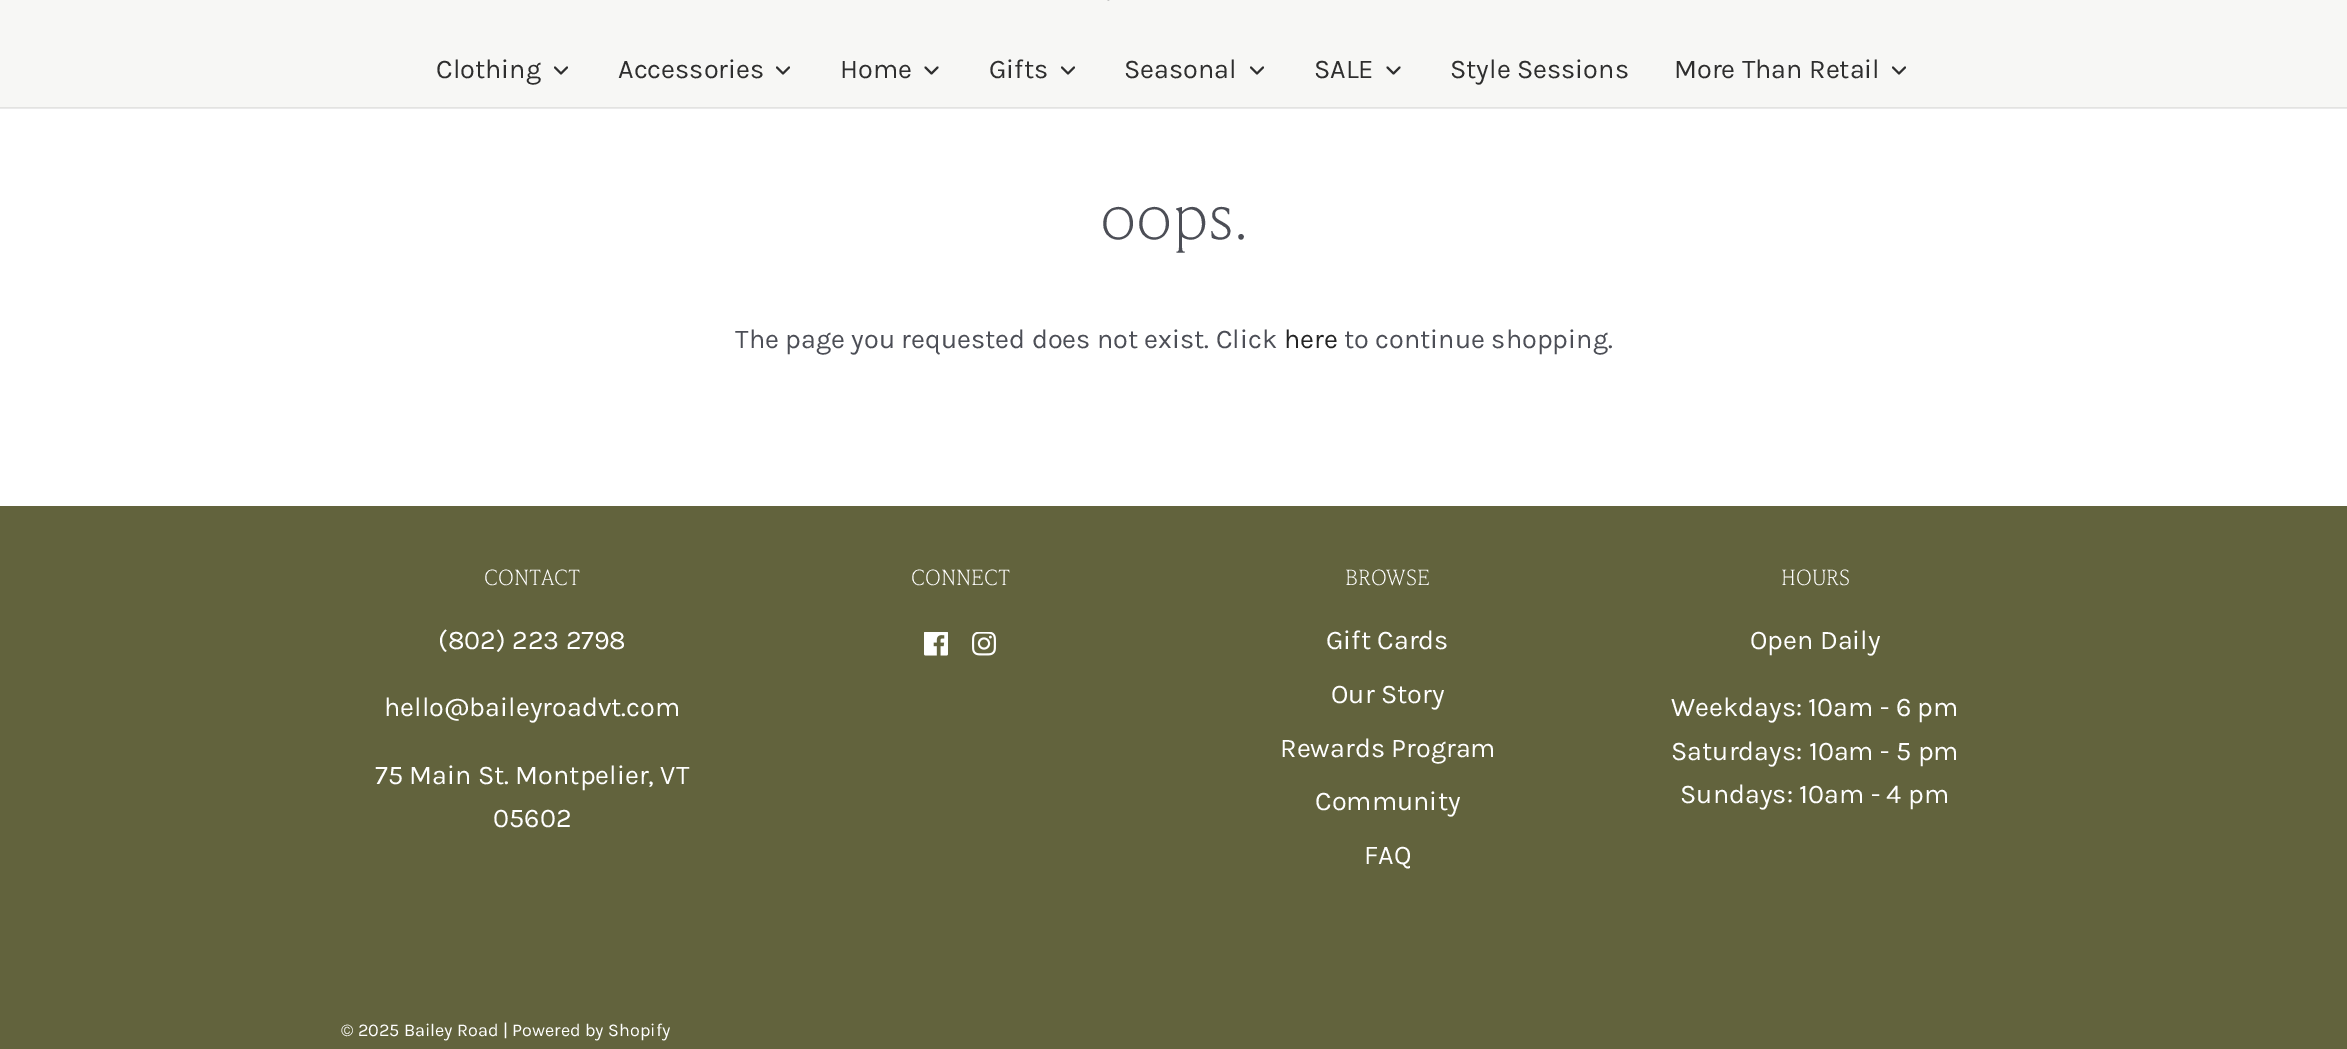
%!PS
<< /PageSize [2347 1049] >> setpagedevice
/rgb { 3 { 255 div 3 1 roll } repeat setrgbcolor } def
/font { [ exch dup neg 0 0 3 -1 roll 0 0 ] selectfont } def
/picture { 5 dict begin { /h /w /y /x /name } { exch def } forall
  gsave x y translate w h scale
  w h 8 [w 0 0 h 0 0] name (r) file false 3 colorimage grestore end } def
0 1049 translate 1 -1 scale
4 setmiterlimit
255 255 255 rgb
0 0 2347 1049 rectfill
[
  [0 108 2347 1 234 234 234]
  [0 0 2347 107 247 247 245]
  [0 107 2347 1 227 227 225]
] { aload pop rgb rectfill } forall
(img/1.rgb) 1107 0 3 1 picture
46 46 46 rgb
2 setlinewidth
1 setlinecap
1 setlinejoin
555 67.5 moveto 561 73.5 lineto 567 67.5 lineto stroke
777 67.5 moveto 783 73.5 lineto 789 67.5 lineto stroke
925.5 67.5 moveto 931.5 73.5 lineto 937.5 67.5 lineto stroke
1062 67.5 moveto 1068 73.5 lineto 1074 67.5 lineto stroke
1251 67.5 moveto 1257 73.5 lineto 1263 67.5 lineto stroke
1387.5 67.5 moveto 1393.5 73.5 lineto 1399.5 67.5 lineto stroke
1893 67.5 moveto 1899 73.5 lineto 1905 67.5 lineto stroke
98 99 61 rgb
0 506 2347 543 rectfill
(img/2.rgb) 924 632 24 24 picture
(img/3.rgb) 972 632 24 24 picture
/Karla-Regular 27 font
46 46 46 rgb
[
  [(Clothing) 436 78]
  [(Accessories) 618 78]
  [(Home) 840 78]
  [(Gifts) 989 78]
  [(Seasonal) 1124 78]
  [(SALE) 1314 78]
  [(Style Sessions) 1450 78]
  [(More Than Retail) 1674 78]
] { aload pop moveto show } forall
/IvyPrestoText-Thin 60 font
76 78 86 rgb
1100 239 moveto (oops.) show
/Karla-Regular 27 font
735 348 moveto (The page you requested does not exist. Click) show
36 36 36 rgb
1284 348 moveto (here) show
76 78 86 rgb
1344 348 moveto (to continue shopping.) show
/IvyPrestoText-Thin 21 font
255 255 255 rgb
484 585 moveto (CONTACT) show
/Karla-Regular 27 font
[
  [(\(802\) 223 2798) 438 649]
  [(hello@baileyroadvt.com) 384 716]
  [(75 Main St. Montpelier, VT) 375 784]
  [(05602) 493 827]
] { aload pop moveto show } forall
/IvyPrestoText-Thin 21 font
911 585 moveto (CONNECT) show
1345 585 moveto (BROWSE) show
/Karla-Regular 27 font
[
  [(Gift Cards) 1326 649]
  [(Our Story) 1331 703]
  [(Rewards Program) 1280 757]
  [(Community) 1315 810]
  [(FAQ) 1364 864]
] { aload pop moveto show } forall
/IvyPrestoText-Thin 21 font
1781 585 moveto (HOURS) show
/Karla-Regular 27 font
[
  [(Open Daily) 1750 649]
  [(Weekdays: 10am - 6 pm) 1671 716]
  [(Saturdays: 10am - 5 pm) 1671 760]
  [(Sundays: 10am - 4 pm) 1680 803]
] { aload pop moveto show } forall
/Karla-Regular 18 font
341 1036 moveto (© 2025 Bailey Road | Powered by Shopify) show
showpage
